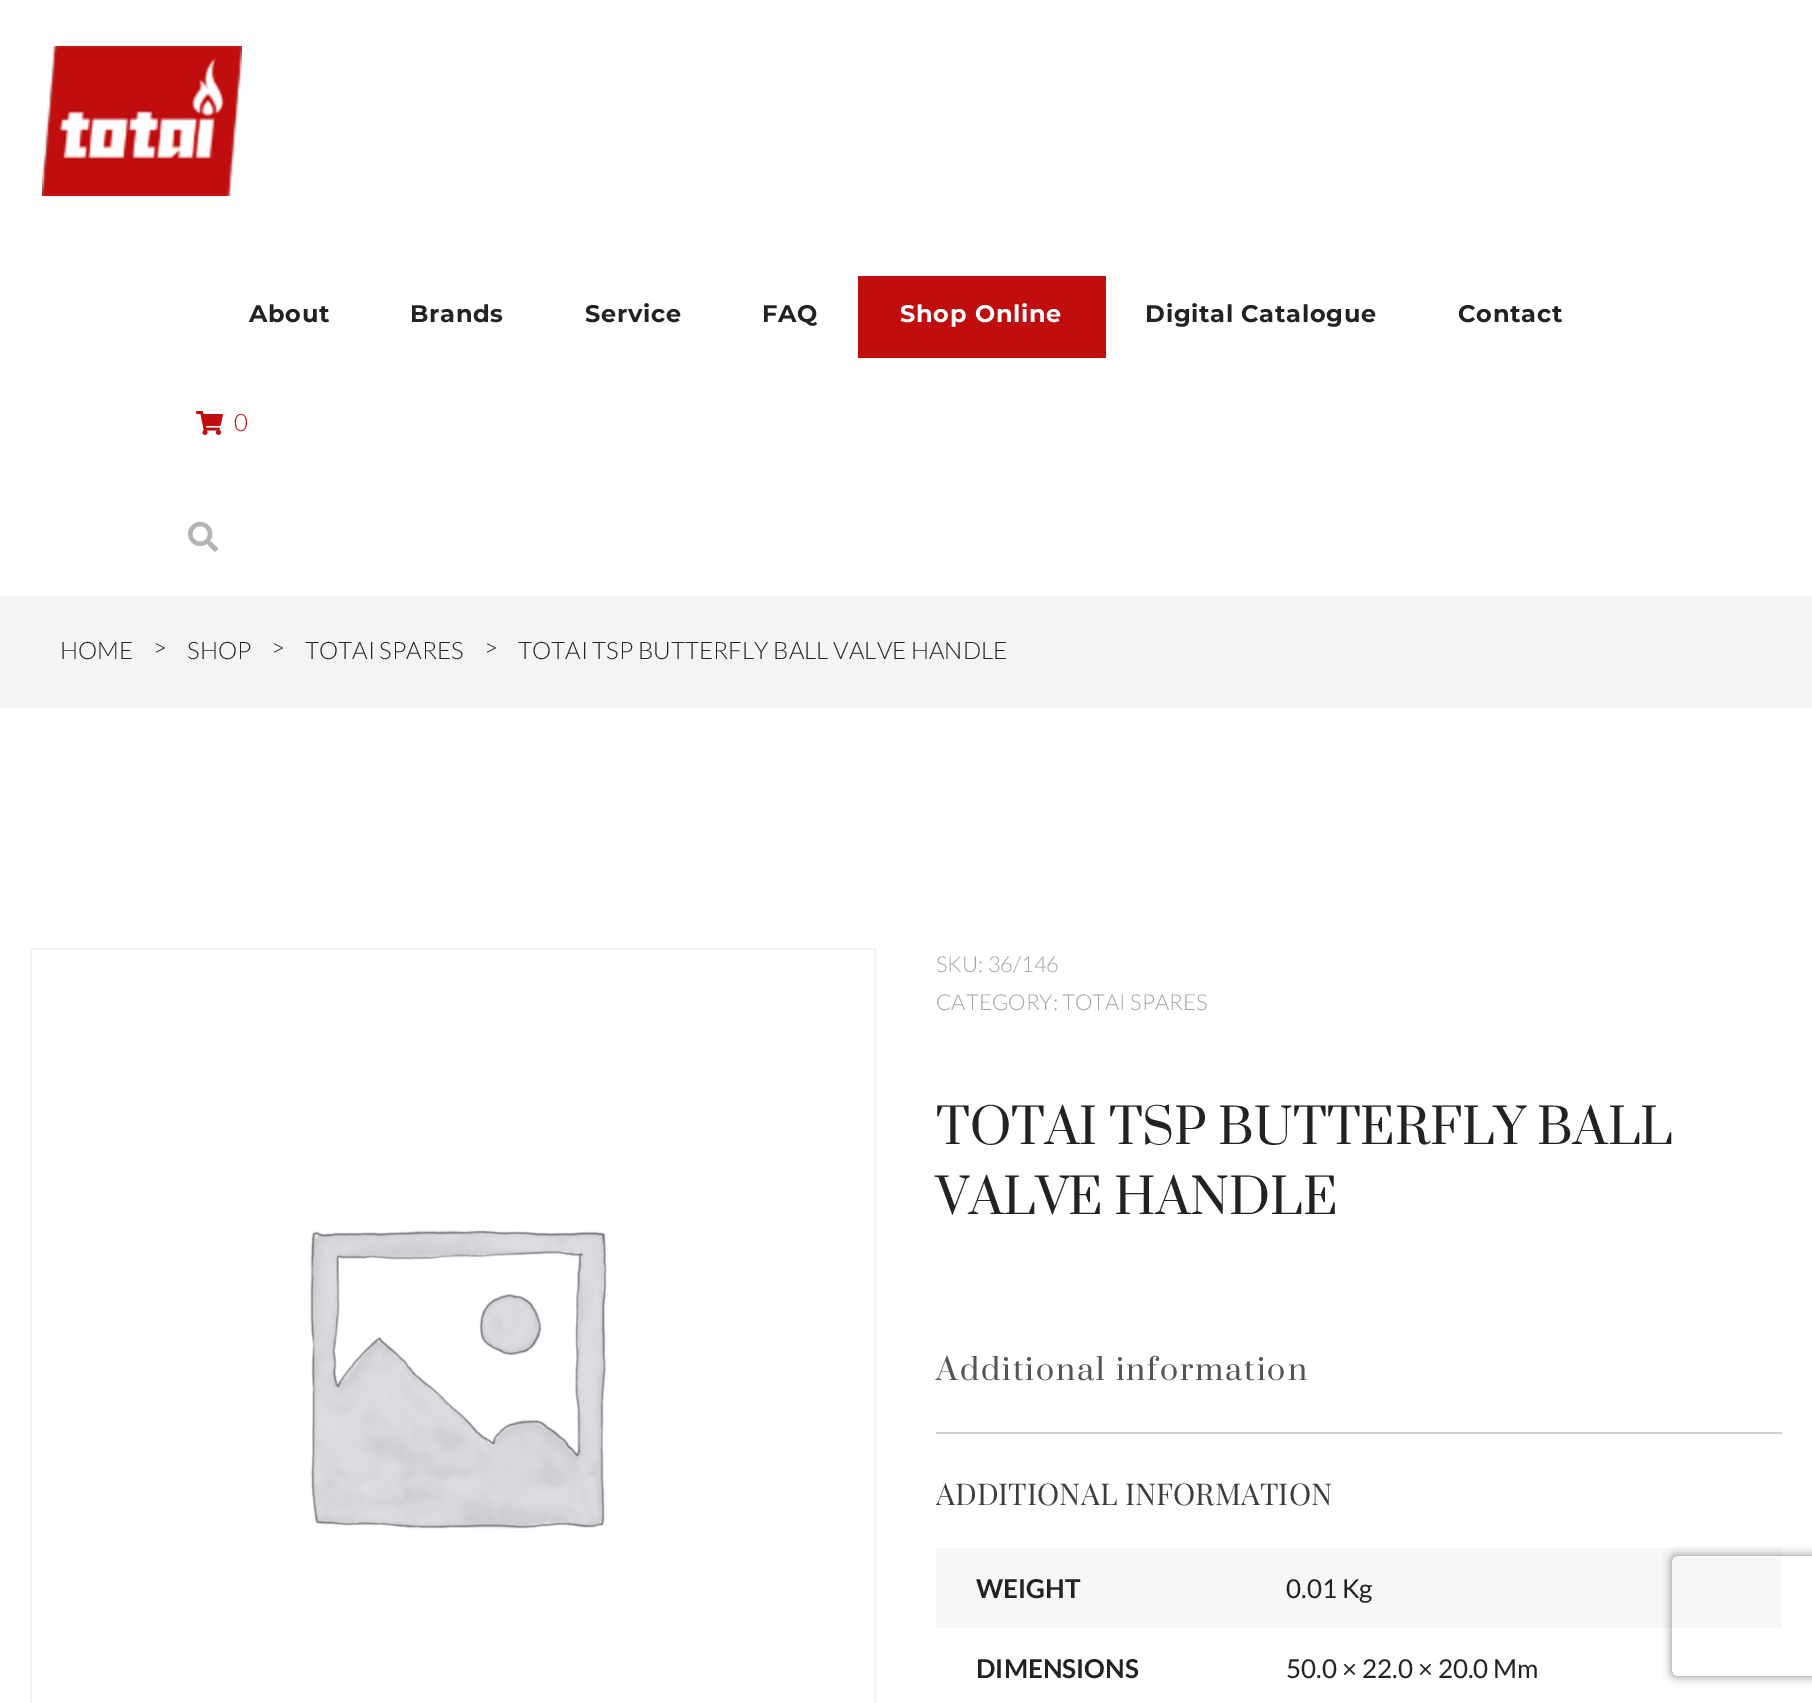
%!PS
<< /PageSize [1812 1703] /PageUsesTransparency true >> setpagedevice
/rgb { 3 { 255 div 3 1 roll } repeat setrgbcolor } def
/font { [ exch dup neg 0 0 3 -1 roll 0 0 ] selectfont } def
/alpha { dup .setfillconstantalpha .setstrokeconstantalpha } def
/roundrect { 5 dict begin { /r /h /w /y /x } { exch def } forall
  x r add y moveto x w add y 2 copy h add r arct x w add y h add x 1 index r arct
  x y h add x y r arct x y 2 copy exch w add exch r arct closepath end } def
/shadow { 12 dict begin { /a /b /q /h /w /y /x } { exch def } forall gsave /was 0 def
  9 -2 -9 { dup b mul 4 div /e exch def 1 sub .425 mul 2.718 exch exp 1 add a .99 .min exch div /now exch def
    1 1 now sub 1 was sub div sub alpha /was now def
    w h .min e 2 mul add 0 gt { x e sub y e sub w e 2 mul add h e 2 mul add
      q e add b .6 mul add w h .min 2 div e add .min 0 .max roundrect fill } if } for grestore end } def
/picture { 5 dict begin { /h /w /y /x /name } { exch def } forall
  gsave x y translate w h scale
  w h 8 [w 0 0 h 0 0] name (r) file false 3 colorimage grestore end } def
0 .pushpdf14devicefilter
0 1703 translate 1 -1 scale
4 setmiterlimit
255 255 255 rgb
0 0 1812 1703 rectfill
(img/1.rgb) 42 46 200 150 picture
192 13 14 rgb
858 276 248 82 rectfill
(img/2.rgb) 196 411 27 24 picture
(img/3.rgb) 188 521 30 31 picture
244 244 244 rgb
0 596 1812 112 rectfill
238 242 249 rgb
2 setlinewidth
31 949 844 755 rectstroke
(img/4.rgb) 310 1230 297 299 picture
211 206 210 rgb
936 1432 846 2 rectfill
247 247 247 rgb
936 1548 846 80 rectfill
gsave
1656 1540 moveto 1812 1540 lineto 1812 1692 lineto 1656 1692 lineto closepath 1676 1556 moveto 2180 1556 lineto 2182 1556 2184 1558 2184 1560 curveto 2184 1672 lineto 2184 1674 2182 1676 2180 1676 curveto 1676 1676 lineto 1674 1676 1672 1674 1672 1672 curveto 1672 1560 lineto 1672 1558 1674 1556 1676 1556 curveto closepath eoclip newpath
128 128 128 rgb
1672 1556 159 120 4 5 1 shadow
grestore
/Montserrat-Bold 24 font
35 34 34 rgb
249 322 moveto 0.75 0 (About) ashow
410 322 moveto 0.75 0 (Brands) ashow
585 322 moveto 0.75 0 (Service) ashow
762 322 moveto 0.75 0 (FAQ) ashow
255 255 255 rgb
900 322 moveto 0.75 0 (Shop Online) ashow
35 34 34 rgb
1145 322 moveto 0.75 0 (Digital Catalogue) ashow
1458 322 moveto 0.75 0 (Contact) ashow
/Lato-Light 24 font
192 13 13 rgb
234 431 moveto (0) show
35 34 34 rgb
[
  [(HOME) 60 659]
  [(>) 153 656]
  [(SHOP) 187 659]
  [(>) 271 656]
  [(TOTAI SPARES) 305 659]
  [(>) 484 656]
  [(TOTAI TSP BUTTERFLY BALL VALVE HANDLE) 518 659]
] { aload pop moveto show } forall
/Lato-Light 22 font
161 162 164 rgb
936 972 moveto (SKU: 36/146) show
936 1010 moveto (CATEGORY: TOTAI SPARES) show
/Prata-Regular 48 font
35 34 34 rgb
936 1144 moveto (TOTAI TSP BUTTERFLY BALL) show
936 1214 moveto (VALVE HANDLE) show
/Prata-Regular 30 font
84 84 84 rgb
936 1380 moveto 2 0 (Additional information) ashow
/PlayfairDisplay-Regular 30 font
59 61 66 rgb
936 1505 moveto (ADDITIONAL INFORMATION) show
/Lato-Bold 26 font
35 34 34 rgb
976 1598 moveto (WEIGHT) show
/Lato-Regular 26 font
1286 1598 moveto (0.01 Kg) show
/Lato-Bold 26 font
976 1678 moveto (DIMENSIONS) show
/Lato-Regular 26 font
1286 1678 moveto (50.0 × 22.0 × 20.0 Mm) show
.poppdf14devicefilter showpage
